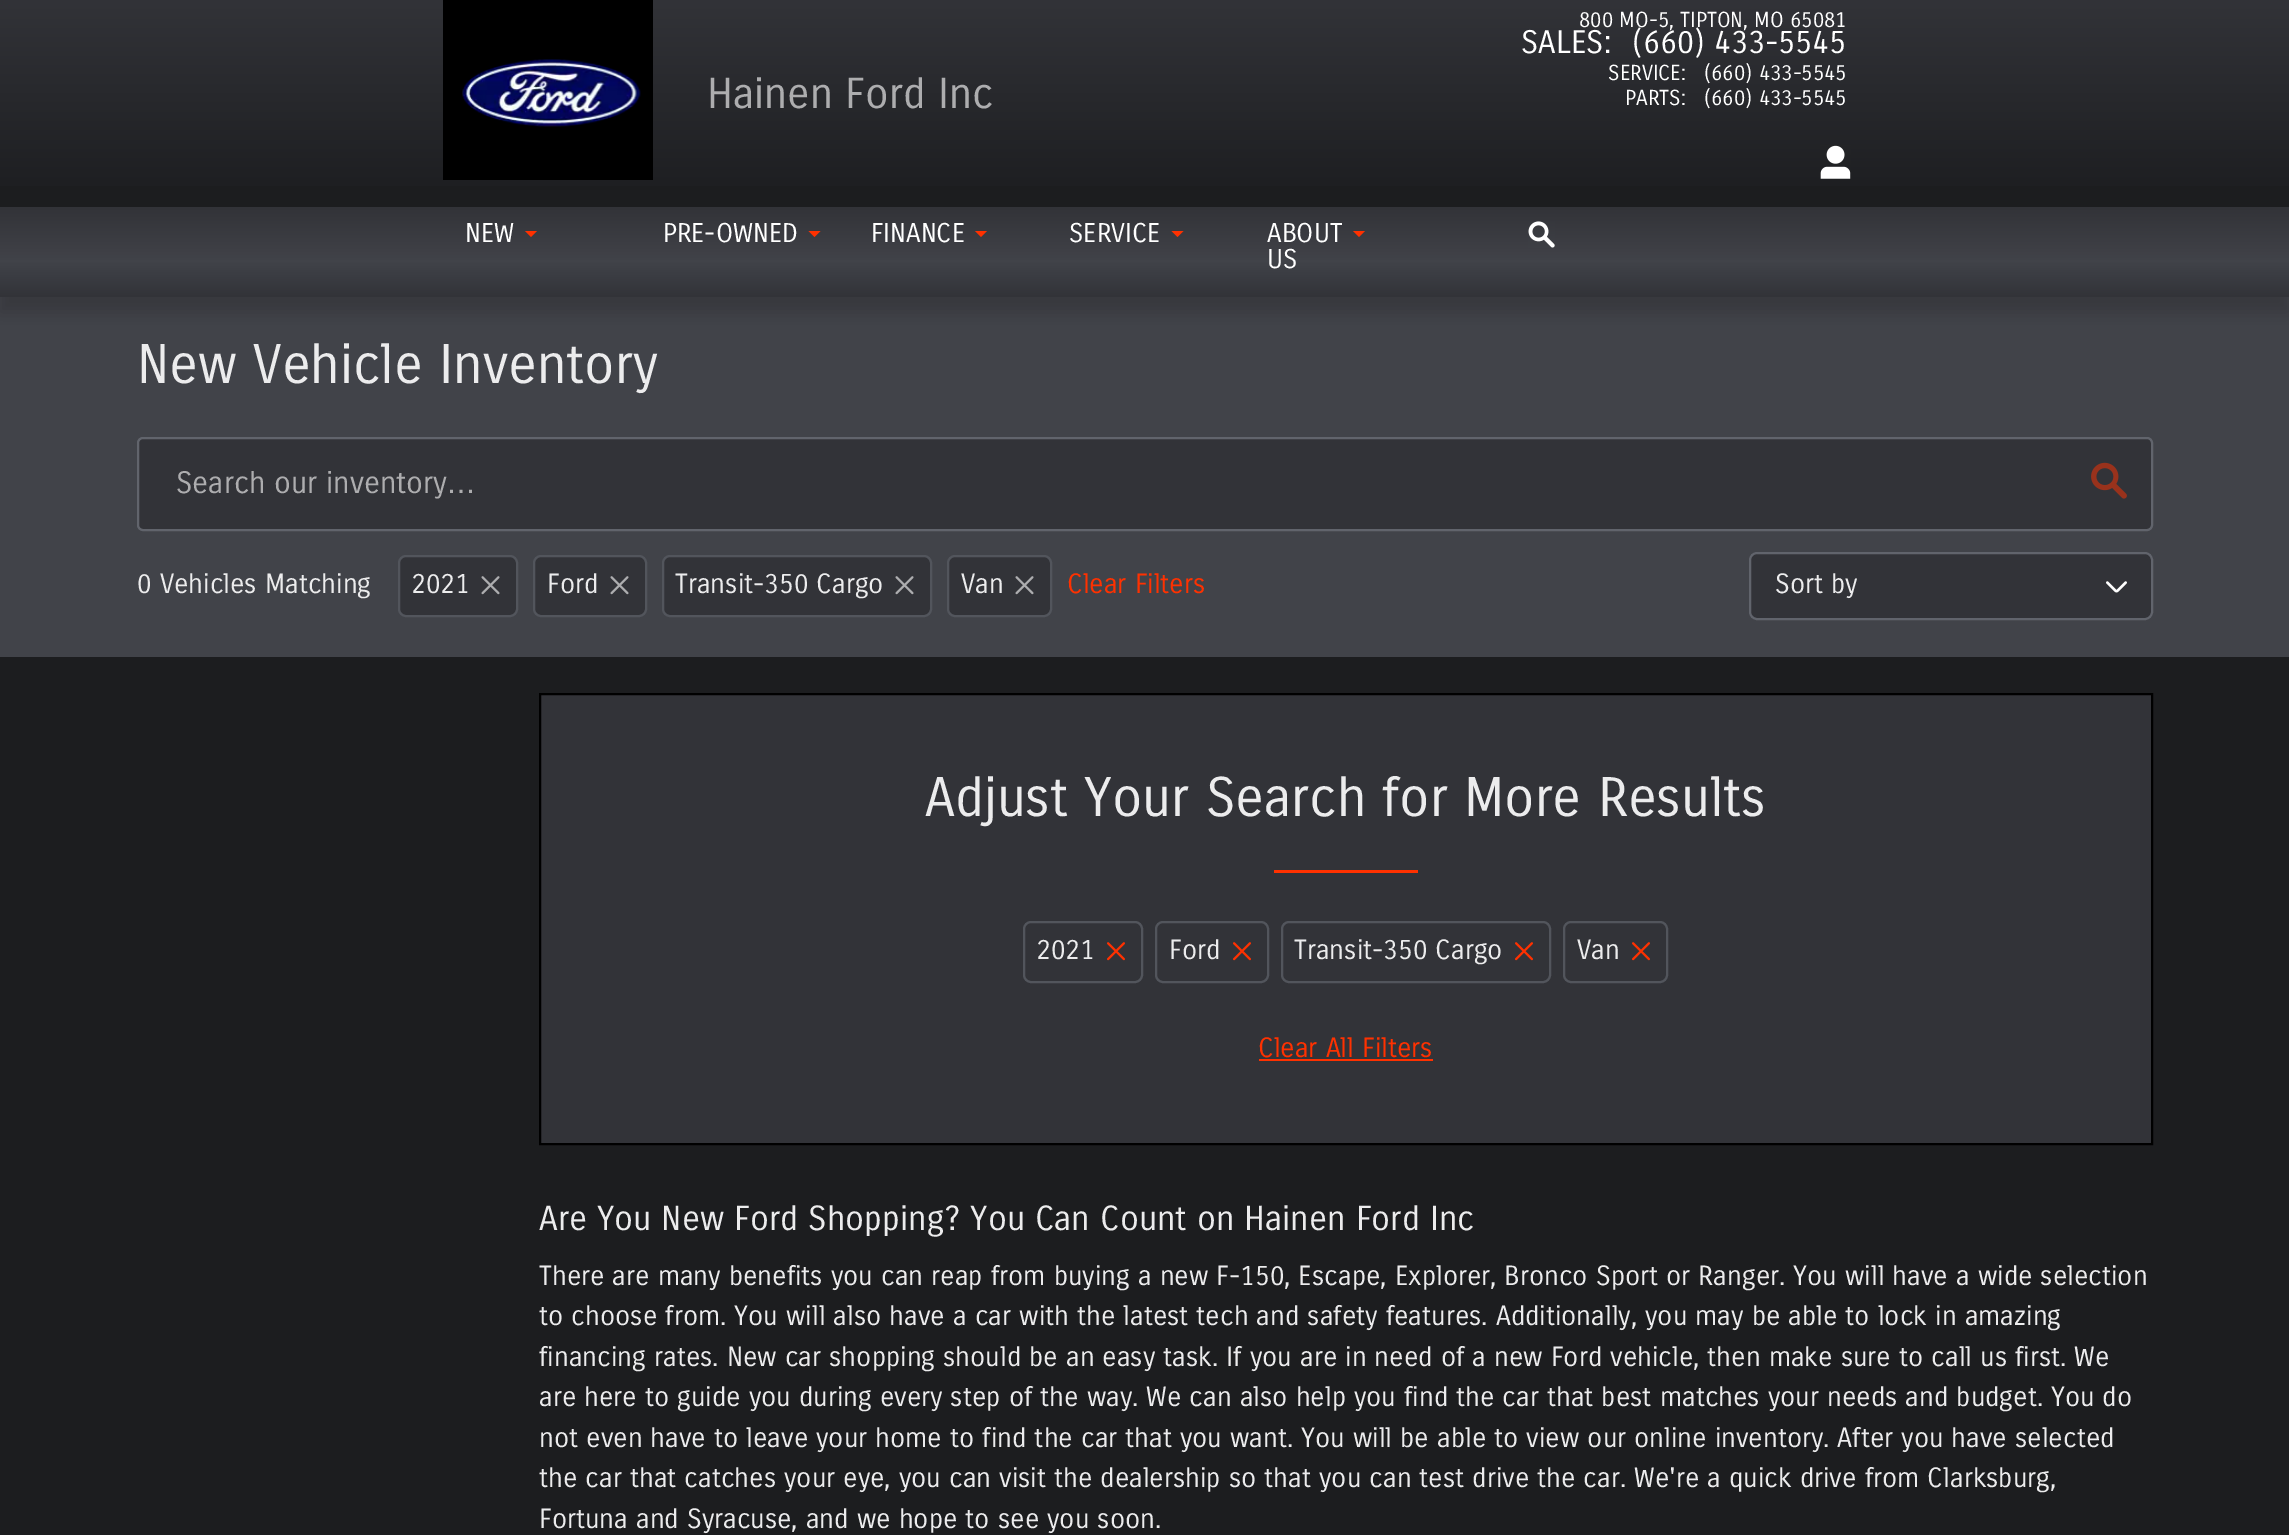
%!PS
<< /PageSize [2289 1535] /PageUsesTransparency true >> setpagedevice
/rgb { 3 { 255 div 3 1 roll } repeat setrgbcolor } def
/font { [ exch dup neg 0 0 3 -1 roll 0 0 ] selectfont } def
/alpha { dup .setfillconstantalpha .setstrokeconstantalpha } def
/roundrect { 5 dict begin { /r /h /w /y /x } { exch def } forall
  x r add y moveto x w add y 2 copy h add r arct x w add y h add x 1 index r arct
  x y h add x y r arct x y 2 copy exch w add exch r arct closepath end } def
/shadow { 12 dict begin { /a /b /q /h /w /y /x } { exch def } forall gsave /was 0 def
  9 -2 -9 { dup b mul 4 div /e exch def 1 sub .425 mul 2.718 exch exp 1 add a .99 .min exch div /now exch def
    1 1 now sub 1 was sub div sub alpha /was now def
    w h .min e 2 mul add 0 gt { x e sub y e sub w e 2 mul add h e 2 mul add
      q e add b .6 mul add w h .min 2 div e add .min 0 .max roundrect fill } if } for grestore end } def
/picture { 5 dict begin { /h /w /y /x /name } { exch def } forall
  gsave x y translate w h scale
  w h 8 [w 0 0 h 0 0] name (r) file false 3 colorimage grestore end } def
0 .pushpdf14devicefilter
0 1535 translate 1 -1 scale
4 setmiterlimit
28 29 31 rgb
0 0 2289 1535 rectfill
gsave 0 0 moveto 2289 0 lineto 2289 186 lineto 0 186 lineto closepath clip newpath
<< /ShadingType 2 /ColorSpace /DeviceRGB /Coords [1145 0 1145 207] /Extend [true true] /Function << /FunctionType 2 /Domain [0 1] /C0 [0.196 0.2 0.22] /C1 [0.11 0.114 0.122] /N 1 >> >> shfill grestore
0 0 0 rgb
443 0 210 180 rectfill
(img/1.rgb) 462 59 179 68 picture
(img/2.rgb) 1820 145 31 34 picture
65 67 73 rgb
0 297 2289 360 rectfill
0 0 0 rgb
0 222 2289 90 0 7.5 0.15 shadow
gsave 0 207 moveto 2289 207 lineto 2289 297 lineto 0 297 lineto closepath clip newpath
<< /ShadingType 2 /ColorSpace /DeviceRGB /Coords [1145 207 1145 297] /Extend [true true] /Function << /FunctionType 3 /Domain [0 1] /Functions [<< /FunctionType 2 /Domain [0 1] /C0 [0.196 0.2 0.22] /C1 [0.255 0.263 0.286] /N 1 >> << /FunctionType 2 /Domain [0 1] /C0 [0.255 0.263 0.286] /C1 [0.196 0.2 0.22] /N 1 >>] /Bounds [0.6] /Encode [0 1 0 1] >> >> shfill grestore
255 49 0 rgb
537 231 moveto 525 231 lineto 531 237 lineto closepath fill
820.5 231 moveto 808.5 231 lineto 814.5 237 lineto closepath fill
987 231 moveto 975 231 lineto 981 237 lineto closepath fill
1183.5 231 moveto 1171.5 231 lineto 1177.5 237 lineto closepath fill
1365 231 moveto 1353 231 lineto 1359 237 lineto closepath fill
(img/3.rgb) 1528 221 27 27 picture
50 51 56 rgb
138 438 2014 92 5 roundrect gsave fill grestore
97 100 108 rgb
2 setlinewidth
stroke
(img/4.rgb) 2091 462 36 37 picture
50 51 56 rgb
399 556 118 60 7 roundrect gsave fill grestore
82 85 92 rgb
stroke
(img/5.rgb) 481 576 19 19 picture
50 51 56 rgb
534 556 112 60 7 roundrect gsave fill grestore
82 85 92 rgb
stroke
(img/5.rgb) 610 576 19 19 picture
50 51 56 rgb
663 556 268 60 7 roundrect gsave fill grestore
82 85 92 rgb
stroke
(img/5.rgb) 895 576 19 19 picture
50 51 56 rgb
948 556 103 60 7 roundrect gsave fill grestore
82 85 92 rgb
stroke
(img/5.rgb) 1015 576 19 19 picture
50 51 56 rgb
1749 552 404 68 8 roundrect fill
(img/6.rgb) 2106 581 21 12 picture
97 100 108 rgb
1750 553 402 66 7 roundrect stroke
50 51 56 rgb
540 694 moveto 2152 694 lineto 2152 1144 lineto 540 1144 lineto closepath gsave fill grestore
0 0 0 rgb
stroke
255 49 0 rgb
1274 870 144 3 rectfill
82 85 92 rgb
1024 922 118 60 7 roundrect stroke
(img/7.rgb) 1107 942 18 19 picture
1156 922 112 60 7 roundrect stroke
(img/7.rgb) 1233 942 18 19 picture
1282 922 268 60 7 roundrect stroke
(img/7.rgb) 1515 942 18 19 picture
1564 922 103 60 7 roundrect stroke
(img/7.rgb) 1632 942 18 19 picture
255 49 0 rgb
1259 1059 174 2 rectfill
/CarroisGothic-Regular 21 font
255 255 255 rgb
1579 27 moveto (800 MO-5, TIPTON, MO 65081) show
/CarroisGothic-Regular 42 font
173 173 175 rgb
707 108 moveto (Hainen Ford Inc) show
/CarroisGothic-Regular 31.5 font
255 255 255 rgb
1521 53 moveto (SALES:) show
1632 53 moveto (\(660\) 433-5545) show
/CarroisGothic-Regular 21 font
[
  [(SERVICE:) 1608 80]
  [(\(660\) 433-5545) 1704 80]
  [(PARTS:) 1625 105]
  [(\(660\) 433-5545) 1704 105]
] { aload pop moveto show } forall
/CarroisGothic-Regular 26.25 font
[
  [(NEW) 465 242]
  [(PRE-OWNED) 663 242]
  [(FINANCE) 871 242]
  [(SERVICE) 1069 242]
  [(ABOUT) 1267 242]
  [(US) 1267 268]
] { aload pop moveto show } forall
/CarroisGothic-Regular 54 font
236 236 237 rgb
137 383 moveto (New Vehicle Inventory) show
/CarroisGothic-Regular 30 font
173 173 175 rgb
176 493 moveto (Search our inventory) show
/LiberationSans-Regular 30 font
446 493 moveto (…) show
/CarroisGothic-Regular 27 font
236 236 237 rgb
[
  [(0 Vehicles Matching) 137 593]
  [(2021) 411 593]
  [(Ford) 547 593]
  [(Transit-350 Cargo) 675 593]
  [(Van) 961 593]
] { aload pop moveto show } forall
255 49 0 rgb
1067 593 moveto (Clear Filters) show
236 236 237 rgb
1775 593 moveto (Sort by) show
/CarroisGothic-Regular 54 font
925 816 moveto (Adjust Your Search for More Results) show
/CarroisGothic-Regular 27 font
[
  [(2021) 1036 959]
  [(Ford) 1169 959]
  [(Transit-350 Cargo) 1294 959]
  [(Van) 1577 959]
] { aload pop moveto show } forall
255 49 0 rgb
1258 1057 moveto (Clear All Filters) show
/CarroisGothic-Regular 33.75 font
236 236 237 rgb
539 1230 moveto (Are You New Ford Shopping? You Can Count on Hainen Ford Inc) show
/CarroisGothic-Regular 27 font
[
  [(There are many benefits you can reap from buying a new F-150, Escape, Explorer, Bronco Sport or Ranger. You will have a wide selection) 539 1285]
  [(to choose from. You will also have a car with the latest tech and safety features. Additionally, you may be able to lock in amazing) 539 1325]
  [(financing rates. New car shopping should be an easy task. If you are in need of a new Ford vehicle, then make sure to call us first. We) 539 1366]
  [(are here to guide you during every step of the way. We can also help you find the car that best matches your needs and budget. You do) 539 1406]
  [(not even have to leave your home to find the car that you want. You will be able to view our online inventory. After you have selected) 539 1447]
  [(the car that catches your eye, you can visit the dealership so that you can test drive the car. We're a quick drive from Clarksburg,) 539 1487]
  [(Fortuna and Syracuse, and we hope to see you soon.) 539 1528]
] { aload pop moveto show } forall
.poppdf14devicefilter showpage
